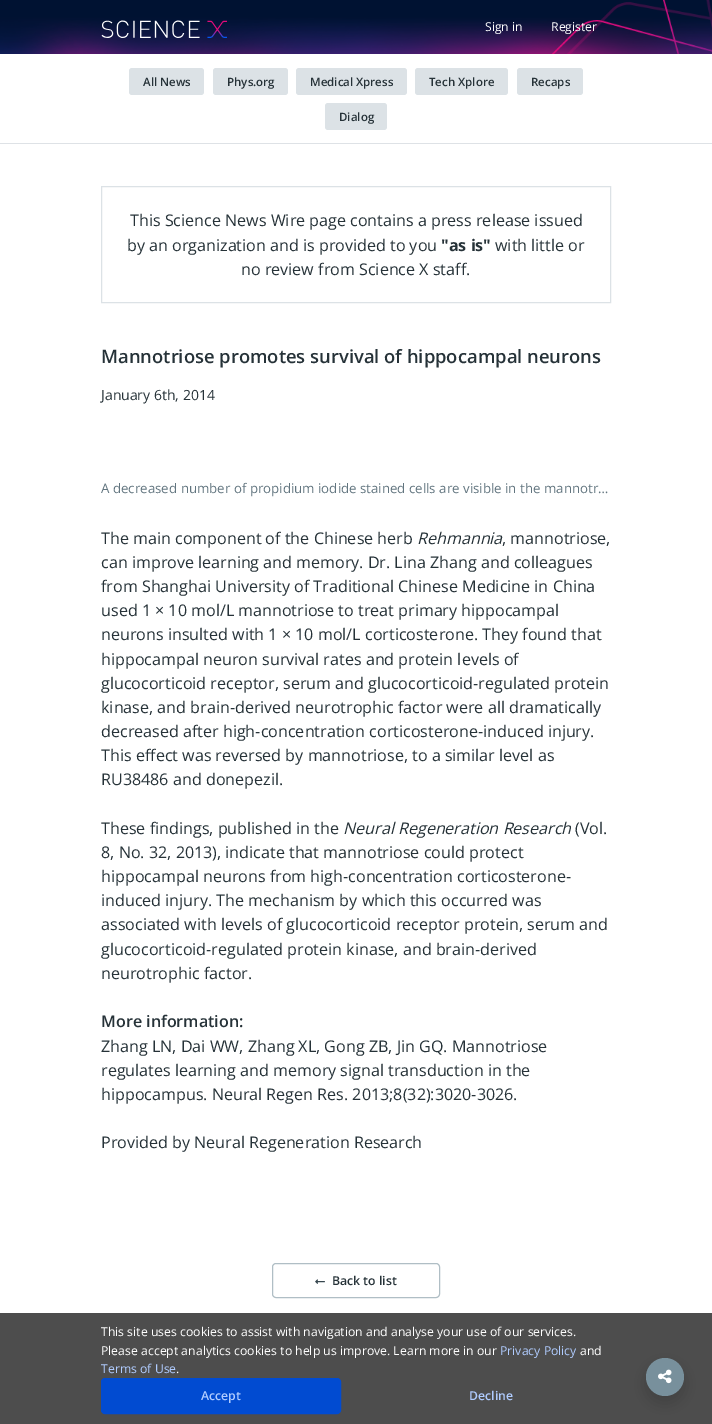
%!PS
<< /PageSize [712 1424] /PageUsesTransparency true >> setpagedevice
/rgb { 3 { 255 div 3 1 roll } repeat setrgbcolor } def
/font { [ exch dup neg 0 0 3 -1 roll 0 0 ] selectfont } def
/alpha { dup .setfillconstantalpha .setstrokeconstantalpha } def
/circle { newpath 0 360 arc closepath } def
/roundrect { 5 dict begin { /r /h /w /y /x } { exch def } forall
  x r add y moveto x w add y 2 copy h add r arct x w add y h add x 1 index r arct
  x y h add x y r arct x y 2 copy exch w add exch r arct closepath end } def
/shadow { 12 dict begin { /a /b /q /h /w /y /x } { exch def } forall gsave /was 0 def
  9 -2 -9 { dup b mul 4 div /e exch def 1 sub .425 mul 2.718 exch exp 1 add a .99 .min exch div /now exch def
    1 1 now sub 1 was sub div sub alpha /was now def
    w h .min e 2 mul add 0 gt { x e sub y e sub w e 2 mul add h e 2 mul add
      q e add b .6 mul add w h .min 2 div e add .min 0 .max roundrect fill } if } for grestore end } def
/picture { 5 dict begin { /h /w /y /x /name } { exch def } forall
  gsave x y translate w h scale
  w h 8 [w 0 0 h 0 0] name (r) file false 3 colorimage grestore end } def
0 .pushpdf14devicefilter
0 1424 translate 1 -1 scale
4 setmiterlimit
255 255 255 rgb
0 0 712 1424 rectfill
(img/1.rgb) 0 0 712 54 picture
(img/2.rgb) 101 20 126 18 picture
222 226 230 rgb
0 143 712 1 rectfill
220 226 230 rgb
129 68 75 27 3 roundrect fill
213 68 75 27 3 roundrect fill
296 68 111 27 3 roundrect fill
415 68 93 27 3 roundrect fill
517 68 66 27 3 roundrect fill
325 103 62 27 3 roundrect fill
101.5 186.5 509 116 rectstroke
77 77 77 rgb
0 1313 712 111 rectfill
0 0 0 rgb
646 1365 38 38 19 7 0.15 shadow
120 144 156 rgb
665 1377 19 circle fill
(img/3.rgb) 658 1369 14 15 picture
176 190 197 rgb
272.5 1263.5 167 34 3.5 roundrect stroke
(img/4.rgb) 315 1279 10 5 picture
1 75 209 rgb
101.5 1378.5 239 35 3.5 roundrect gsave fill grestore
stroke
/OpenSans-Regular 12.25 font
255 255 255 rgb
485 31 moveto (Sign in) show
551 31 moveto (Register) show
/OpenSans-SemiBold 11.5 font
38 50 56 rgb
[
  [(All News) 143 86]
  [(Phys.org) 227 86]
  [(Medical Xpress) 310 86]
  [(Tech Xplore) 429 86]
  [(Recaps) 531 86]
  [(Dialog) 339 121]
] { aload pop moveto show } forall
/OpenSans-Regular 16.1 font
130 226 moveto (This Science News Wire page contains a press release issued) show
127 251 moveto (by an organization and is provided to you) show
/OpenSans-Bold 16.1 font
441 251 moveto ("as is") show
/OpenSans-Regular 16.1 font
495 251 moveto (with little or) show
241 275 moveto (no review from Science X staff.) show
/OpenSans-SemiBold 18.4 font
101 363 moveto (Mannotriose promotes survival of hippocampal neurons) show
/OpenSans-Regular 14 font
101 400 moveto (January 6th, 2014) show
/OpenSans-Regular 13.3 font
98 117 127 rgb
101 493 moveto (A decreased number of propidium iodide stained cells are visible in the mannotr…) show
/OpenSans-Regular 16.1 font
38 50 56 rgb
101 544 moveto (The main component of the Chinese herb) show
/OpenSans-Italic 16.1 font
417 544 moveto (Rehmannia) show
/OpenSans-Regular 16.1 font
[
  [(, mannotriose,) 502 544]
  [(can improve learning and memory. Dr. Lina Zhang and colleagues) 101 568]
  [(from Shanghai University of Traditional Chinese Medicine in China) 101 592]
  [(used 1 × 10 mol/L mannotriose to treat primary hippocampal) 101 616]
  [(neurons insulted with 1 × 10 mol/L corticosterone. They found that) 101 640]
  [(hippocampal neuron survival rates and protein levels of) 101 665]
  [(glucocorticoid receptor, serum and glucocorticoid-regulated protein) 101 689]
  [(kinase, and brain-derived neurotrophic factor were all dramatically) 101 713]
  [(decreased after high-concentration corticosterone-induced injury.) 101 737]
  [(This effect was reversed by mannotriose, to a similar level as) 101 761]
  [(RU38486 and donepezil.) 101 785]
  [(These findings, published in the) 101 834]
] { aload pop moveto show } forall
/OpenSans-Italic 16.1 font
343 834 moveto (Neural Regeneration Research) show
/OpenSans-Regular 16.1 font
[
  [(\(Vol.) 575 834]
  [(8, No. 32, 2013\), indicate that mannotriose could protect) 101 858]
  [(hippocampal neurons from high-concentration corticosterone-) 101 882]
  [(induced injury. The mechanism by which this occurred was) 101 906]
  [(associated with levels of glucocorticoid receptor protein, serum and) 101 930]
  [(glucocorticoid-regulated protein kinase, and brain-derived) 101 955]
  [(neurotrophic factor.) 101 979]
] { aload pop moveto show } forall
/OpenSans-SemiBold 16.1 font
101 1027 moveto (More information:) show
/OpenSans-Regular 16.1 font
[
  [(Zhang LN, Dai WW, Zhang XL, Gong ZB, Jin GQ. Mannotriose) 101 1052]
  [(regulates learning and memory signal transduction in the) 101 1076]
  [(hippocampus. Neural Regen Res. 2013;8\(32\):3020-3026.) 101 1100]
  [(Provided by Neural Regeneration Research) 101 1148]
] { aload pop moveto show } forall
/OpenSans-SemiBold 12.25 font
332 1285 moveto (Back to list) show
/OpenSans-Regular 12.25 font
255 255 255 rgb
101 1336 moveto (This site uses cookies to assist with navigation and analyse your use of our services.) show
101 1355 moveto (Please accept analytics cookies to help us improve. Learn more in our) show
176 204 255 rgb
500 1355 moveto (Privacy Policy) show
255 255 255 rgb
580 1355 moveto (and) show
176 204 255 rgb
101 1373 moveto (Terms of Use) show
255 255 255 rgb
176 1373 moveto (.) show
/OpenSans-SemiBold 12.25 font
176 204 255 rgb
201 1400 moveto (Accept) show
469 1400 moveto (Decline) show
.poppdf14devicefilter showpage
